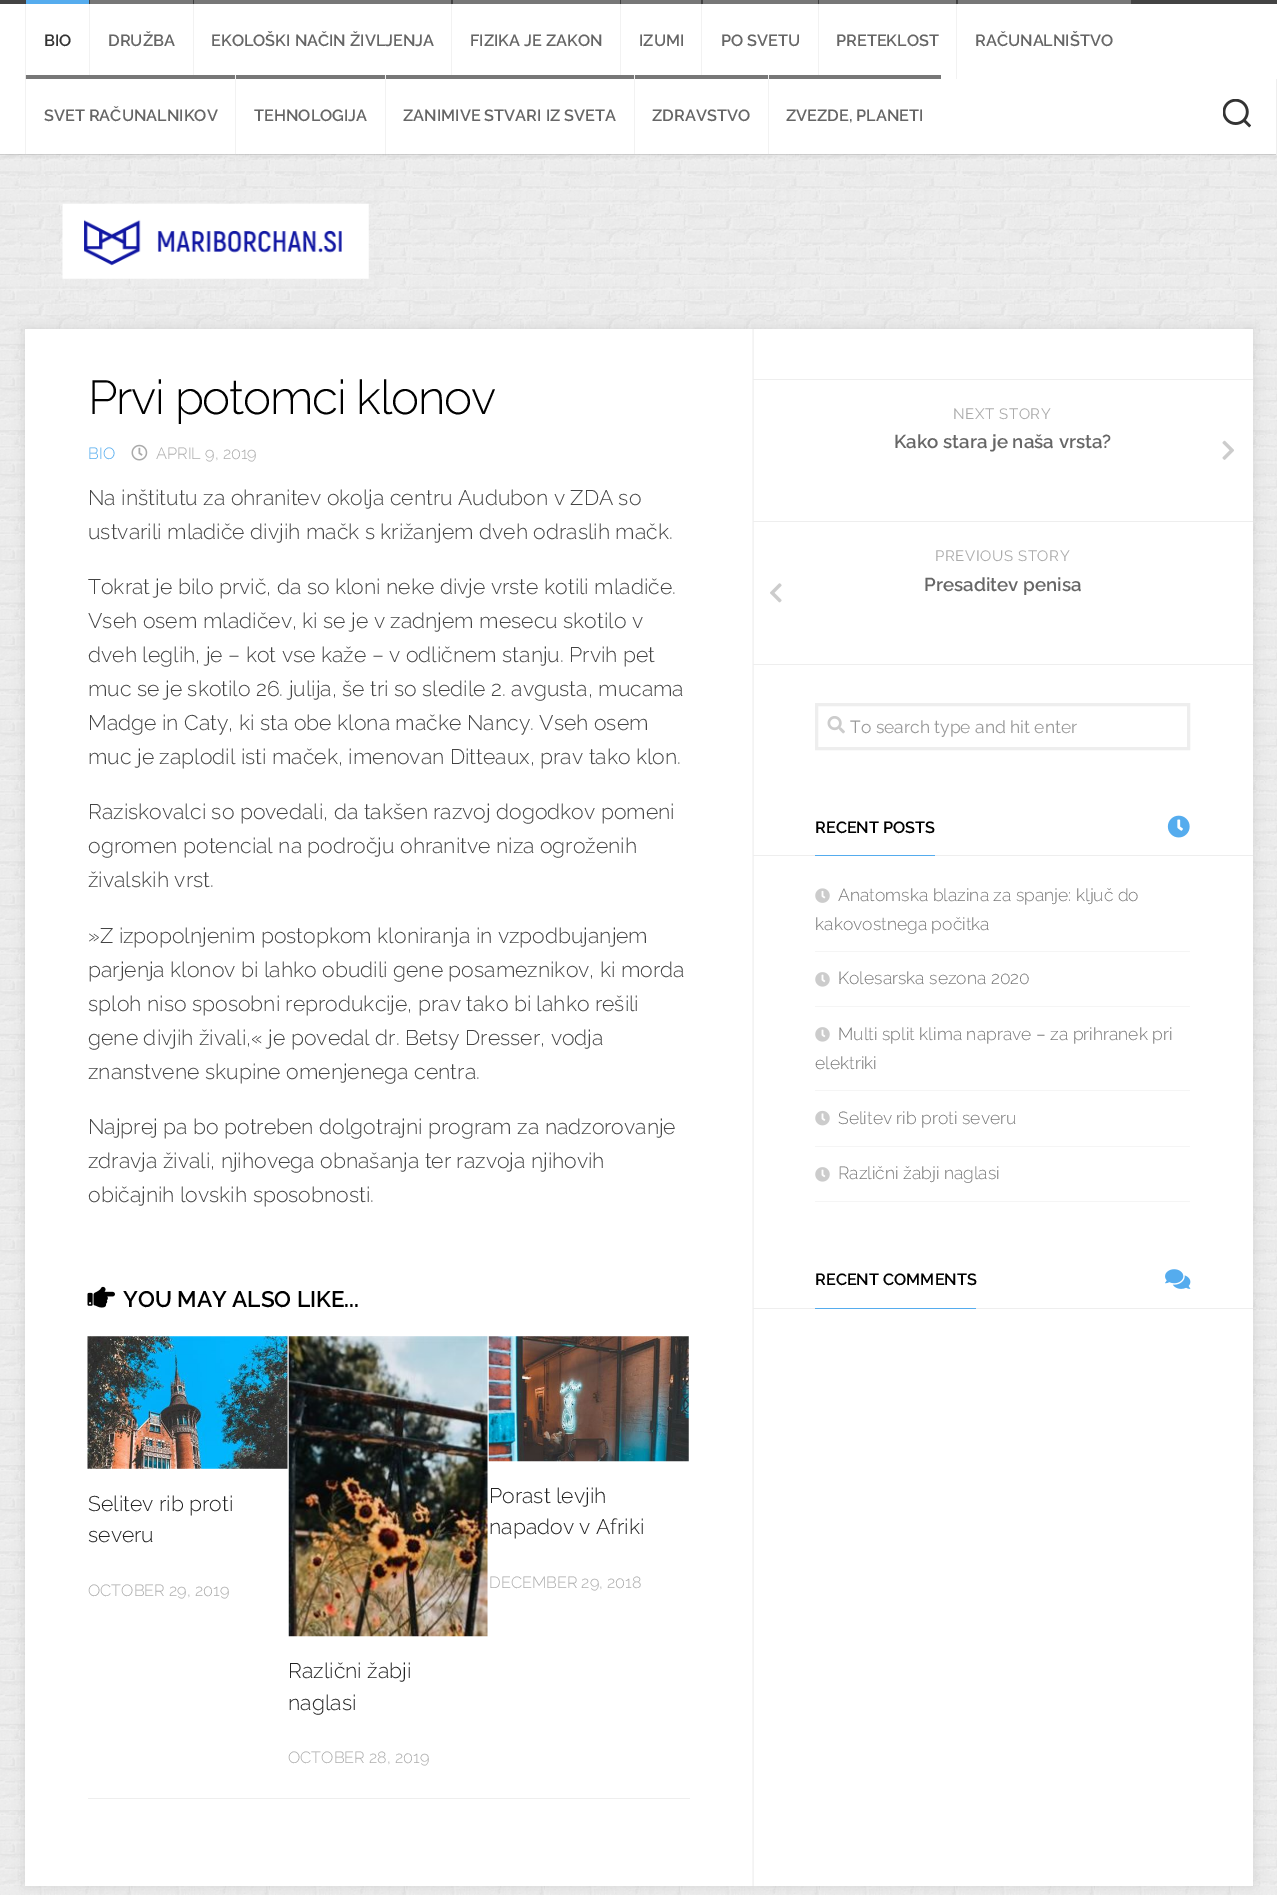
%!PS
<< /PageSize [1277 1895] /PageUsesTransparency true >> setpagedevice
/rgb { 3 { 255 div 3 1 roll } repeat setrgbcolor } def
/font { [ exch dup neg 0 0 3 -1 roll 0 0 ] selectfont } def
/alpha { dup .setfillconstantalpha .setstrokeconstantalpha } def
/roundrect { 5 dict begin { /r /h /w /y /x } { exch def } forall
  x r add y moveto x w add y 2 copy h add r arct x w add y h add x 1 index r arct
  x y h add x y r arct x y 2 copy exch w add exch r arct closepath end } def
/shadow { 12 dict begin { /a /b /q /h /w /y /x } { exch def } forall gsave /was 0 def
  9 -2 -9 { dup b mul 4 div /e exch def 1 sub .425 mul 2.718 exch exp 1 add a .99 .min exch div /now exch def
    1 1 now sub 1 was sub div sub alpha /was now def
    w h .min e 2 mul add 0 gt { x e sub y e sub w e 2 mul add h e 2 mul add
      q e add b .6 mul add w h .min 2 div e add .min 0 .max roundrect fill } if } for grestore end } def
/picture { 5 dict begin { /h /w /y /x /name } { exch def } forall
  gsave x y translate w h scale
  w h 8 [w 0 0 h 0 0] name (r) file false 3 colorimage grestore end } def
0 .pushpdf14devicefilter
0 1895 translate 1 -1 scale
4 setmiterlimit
255 255 255 rgb
0 0 1277 1895 rectfill
(img/1.rgb) 0 154 1277 1741 picture
0 0 0 rgb
0 4 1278 154 0 2 0.04 shadow
0.1 alpha
0 154 moveto 0 155 lineto 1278 155 lineto 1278 1 lineto 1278 154 lineto closepath fill
1 alpha
[
  [0 4 1277 150 255 255 255]
  [0 0 1277 4 68 68 68]
] { aload pop rgb rectfill } forall
0.05 alpha
[
  [25 0 1 79 0 0 0]
] { aload pop rgb rectfill } forall
1 alpha
[
  [26 0 63 4 85 172 238]
] { aload pop rgb rectfill } forall
0.05 alpha
[
  [89 0 1 79 0 0 0]
] { aload pop rgb rectfill } forall
1 alpha
[
  [90 0 103 4 119 119 119]
] { aload pop rgb rectfill } forall
0.05 alpha
[
  [193 0 1 79 0 0 0]
] { aload pop rgb rectfill } forall
1 alpha
[
  [194 0 257 4 119 119 119]
] { aload pop rgb rectfill } forall
0.05 alpha
[
  [451 0 1 79 0 0 0]
] { aload pop rgb rectfill } forall
1 alpha
[
  [453 0 167 4 119 119 119]
] { aload pop rgb rectfill } forall
0.05 alpha
[
  [620 0 1 79 0 0 0]
] { aload pop rgb rectfill } forall
1 alpha
[
  [621 0 80 4 119 119 119]
] { aload pop rgb rectfill } forall
0.05 alpha
[
  [701 0 1 79 0 0 0]
] { aload pop rgb rectfill } forall
1 alpha
[
  [703 0 115 4 119 119 119]
] { aload pop rgb rectfill } forall
0.05 alpha
[
  [818 0 1 79 0 0 0]
] { aload pop rgb rectfill } forall
1 alpha
[
  [819 0 137 4 119 119 119]
] { aload pop rgb rectfill } forall
0.05 alpha
[
  [956 0 1 79 0 0 0]
] { aload pop rgb rectfill } forall
1 alpha
[
  [958 0 173 4 119 119 119]
] { aload pop rgb rectfill } forall
0.05 alpha
[
  [25 75 1 79 0 0 0]
] { aload pop rgb rectfill } forall
1 alpha
[
  [26 75 209 4 119 119 119]
  [235 75 1 79 242 242 242]
  [236 75 149 4 119 119 119]
  [385 75 1 79 242 242 242]
  [386 75 248 4 119 119 119]
  [634 75 1 79 242 242 242]
  [635 75 133 4 119 119 119]
  [768 75 1 79 242 242 242]
  [769 75 172 4 119 119 119]
  [1276 79 1 76 238 238 238]
] { aload pop rgb rectfill } forall
(img/2.rgb) 1223 99 28 29 picture
(img/3.rgb) 62 203 307 76 picture
0 0 0 rgb
25 329 1228 1557 0 6 0.1 shadow
255 255 255 rgb
25 329 1228 1557 rectfill
(img/4.rgb) 752 329 2 1557 picture
(img/5.rgb) 131 444 17 17 picture
(img/6.rgb) 87 1286 28 22 picture
238 238 238 rgb
88 1798 602 1 rectfill
(img/7.rgb) 87 1336 201 133 picture
(img/8.rgb) 488 1336 201 126 picture
(img/9.rgb) 288 1336 200 301 picture
753 379 500 1 rectfill
753 521 500 1 rectfill
(img/10.rgb) 1222 440 12 20 picture
753 664 500 1 rectfill
(img/11.rgb) 770 583 12 20 picture
3 setlinewidth
816.5 704.5 372 44 rectstroke
(img/12.rgb) 827 716 18 18 picture
753 855 500 1 rectfill
85 172 238 rgb
815 855 120 1 rectfill
(img/13.rgb) 1167 815 23 23 picture
245 245 245 rgb
815 951 375 1 rectfill
(img/14.rgb) 815 888 15 15 picture
815 1006 375 1 rectfill
(img/15.rgb) 815 972 15 15 picture
815 1090 375 1 rectfill
(img/15.rgb) 815 1027 15 15 picture
815 1146 375 1 rectfill
(img/16.rgb) 815 1110 15 16 picture
815 1201 375 1 rectfill
(img/15.rgb) 815 1167 15 15 picture
238 238 238 rgb
753 1308 500 1 rectfill
85 172 238 rgb
815 1308 161 1 rectfill
(img/17.rgb) 1165 1269 26 20 picture
/Raleway-SemiBold 16.25 font
51 51 51 rgb
44 46 moveto (BIO) show
102 102 102 rgb
[
  [(DRUŽBA) 108 46]
  [(EKOLOŠKI NAČIN ŽIVLJENJA) 211 46]
  [(FIZIKA JE ZAKON) 470 46]
  [(IZUMI) 639 46]
  [(PO SVETU) 721 46]
  [(PRETEKLOST) 836 46]
  [(RAČUNALNIŠTVO) 975 46]
  [(SVET RAČUNALNIKOV) 44 121]
  [(TEHNOLOGIJA) 254 121]
  [(ZANIMIVE STVARI IZ SVETA) 403 121]
  [(ZDRAVSTVO) 652 121]
  [(ZVEZDE, PLANETI) 786 121]
] { aload pop moveto show } forall
/Raleway-Light 47.5 font
0 0 0 rgb
88 414 moveto -1.25 0 (Prvi potomci klonov) ashow
/Raleway-Light 16.25 font
85 172 238 rgb
88 459 moveto (BIO) show
170 170 170 rgb
156 459 moveto (APRIL 9, 2019) show
/Raleway-Light 21.25 font
68 68 68 rgb
[
  [(Na inštitutu za ohranitev okolja centru Audubon v ZDA so) 88 505]
  [(ustvarili mladiče divjih mačk s križanjem dveh odraslih mačk.) 88 539]
  [(Tokrat je bilo prvič, da so kloni neke divje vrste kotili mladiče.) 88 594]
  [(Vseh osem mladičev, ki se je v zadnjem mesecu skotilo v) 88 628]
  [(dveh leglih, je – kot vse kaže – v odličnem stanju. Prvih pet) 88 662]
  [(muc se je skotilo 26. julija, še tri so sledile 2. avgusta, mucama) 88 696]
  [(Madge in Caty, ki sta obe klona mačke Nancy. Vseh osem) 88 730]
  [(muc je zaplodil isti maček, imenovan Ditteaux, prav tako klon.) 88 764]
  [(Raziskovalci so povedali, da takšen razvoj dogodkov pomeni) 88 819]
  [(ogromen potencial na področju ohranitve niza ogroženih) 88 853]
  [(živalskih vrst.) 88 887]
  [(»Z izpopolnjenim postopkom kloniranja in vzpodbujanjem) 88 943]
  [(parjenja klonov bi lahko obudili gene posameznikov, ki morda) 88 977]
  [(sploh niso sposobni reprodukcije, prav tako bi lahko rešili) 88 1011]
  [(gene divjih živali,« je povedal dr. Betsy Dresser, vodja) 88 1045]
  [(znanstvene skupine omenjenega centra.) 88 1079]
  [(Najprej pa bo potreben dolgotrajni program za nadzorovanje) 88 1134]
  [(zdravja živali, njihovega obnašanja ter razvoja njihovih) 88 1168]
  [(običajnih lovskih sposobnosti.) 88 1202]
] { aload pop moveto show } forall
/Raleway-SemiBold 22.5 font
0 0 0 rgb
123 1307 moveto (YOU MAY ALSO LIKE...) show
/Raleway-Light 21.25 font
34 34 34 rgb
88 1511 moveto (Selitev rib proti) show
88 1542 moveto (severu) show
/Raleway-Light 16.25 font
170 170 170 rgb
88 1596 moveto (OCTOBER 29, 2019) show
/Raleway-Light 21.25 font
34 34 34 rgb
489 1503 moveto (Porast levjih) show
489 1534 moveto (napadov v Afriki) show
/Raleway-Light 16.25 font
170 170 170 rgb
489 1588 moveto (DECEMBER 29, 2018) show
/Raleway-Light 21.25 font
34 34 34 rgb
288 1678 moveto (Različni žabji) show
288 1710 moveto (naglasi) show
/Raleway-Light 16.25 font
170 170 170 rgb
288 1763 moveto (OCTOBER 28, 2019) show
/Raleway-Regular 15 font
953 419 moveto 0.6 0 (NEXT STORY) ashow
/Raleway-SemiBold 18.75 font
102 102 102 rgb
894 448 moveto (Kako stara je naša vrsta?) show
/Raleway-Regular 15 font
170 170 170 rgb
935 561 moveto 0.6 0 (PREVIOUS STORY) ashow
/Raleway-SemiBold 18.75 font
102 102 102 rgb
924 591 moveto (Presaditev penisa) show
/Raleway-Regular 17.5 font
153 153 153 rgb
850 733 moveto (To search type and hit enter) show
/Raleway-SemiBold 16.25 font
0 0 0 rgb
815 833 moveto (RECENT POSTS) show
/Raleway-Light 17.5 font
119 119 119 rgb
[
  [(Anatomska blazina za spanje: ključ do) 838 901]
  [(kakovostnega počitka) 815 930]
  [(Kolesarska sezona 2020) 838 984]
  [(Multi split klima naprave – za prihranek pri) 838 1040]
  [(elektriki) 815 1069]
  [(Selitev rib proti severu) 838 1124]
  [(Različni žabji naglasi) 838 1179]
] { aload pop moveto show } forall
/Raleway-SemiBold 16.25 font
0 0 0 rgb
815 1285 moveto (RECENT COMMENTS) show
.poppdf14devicefilter showpage
